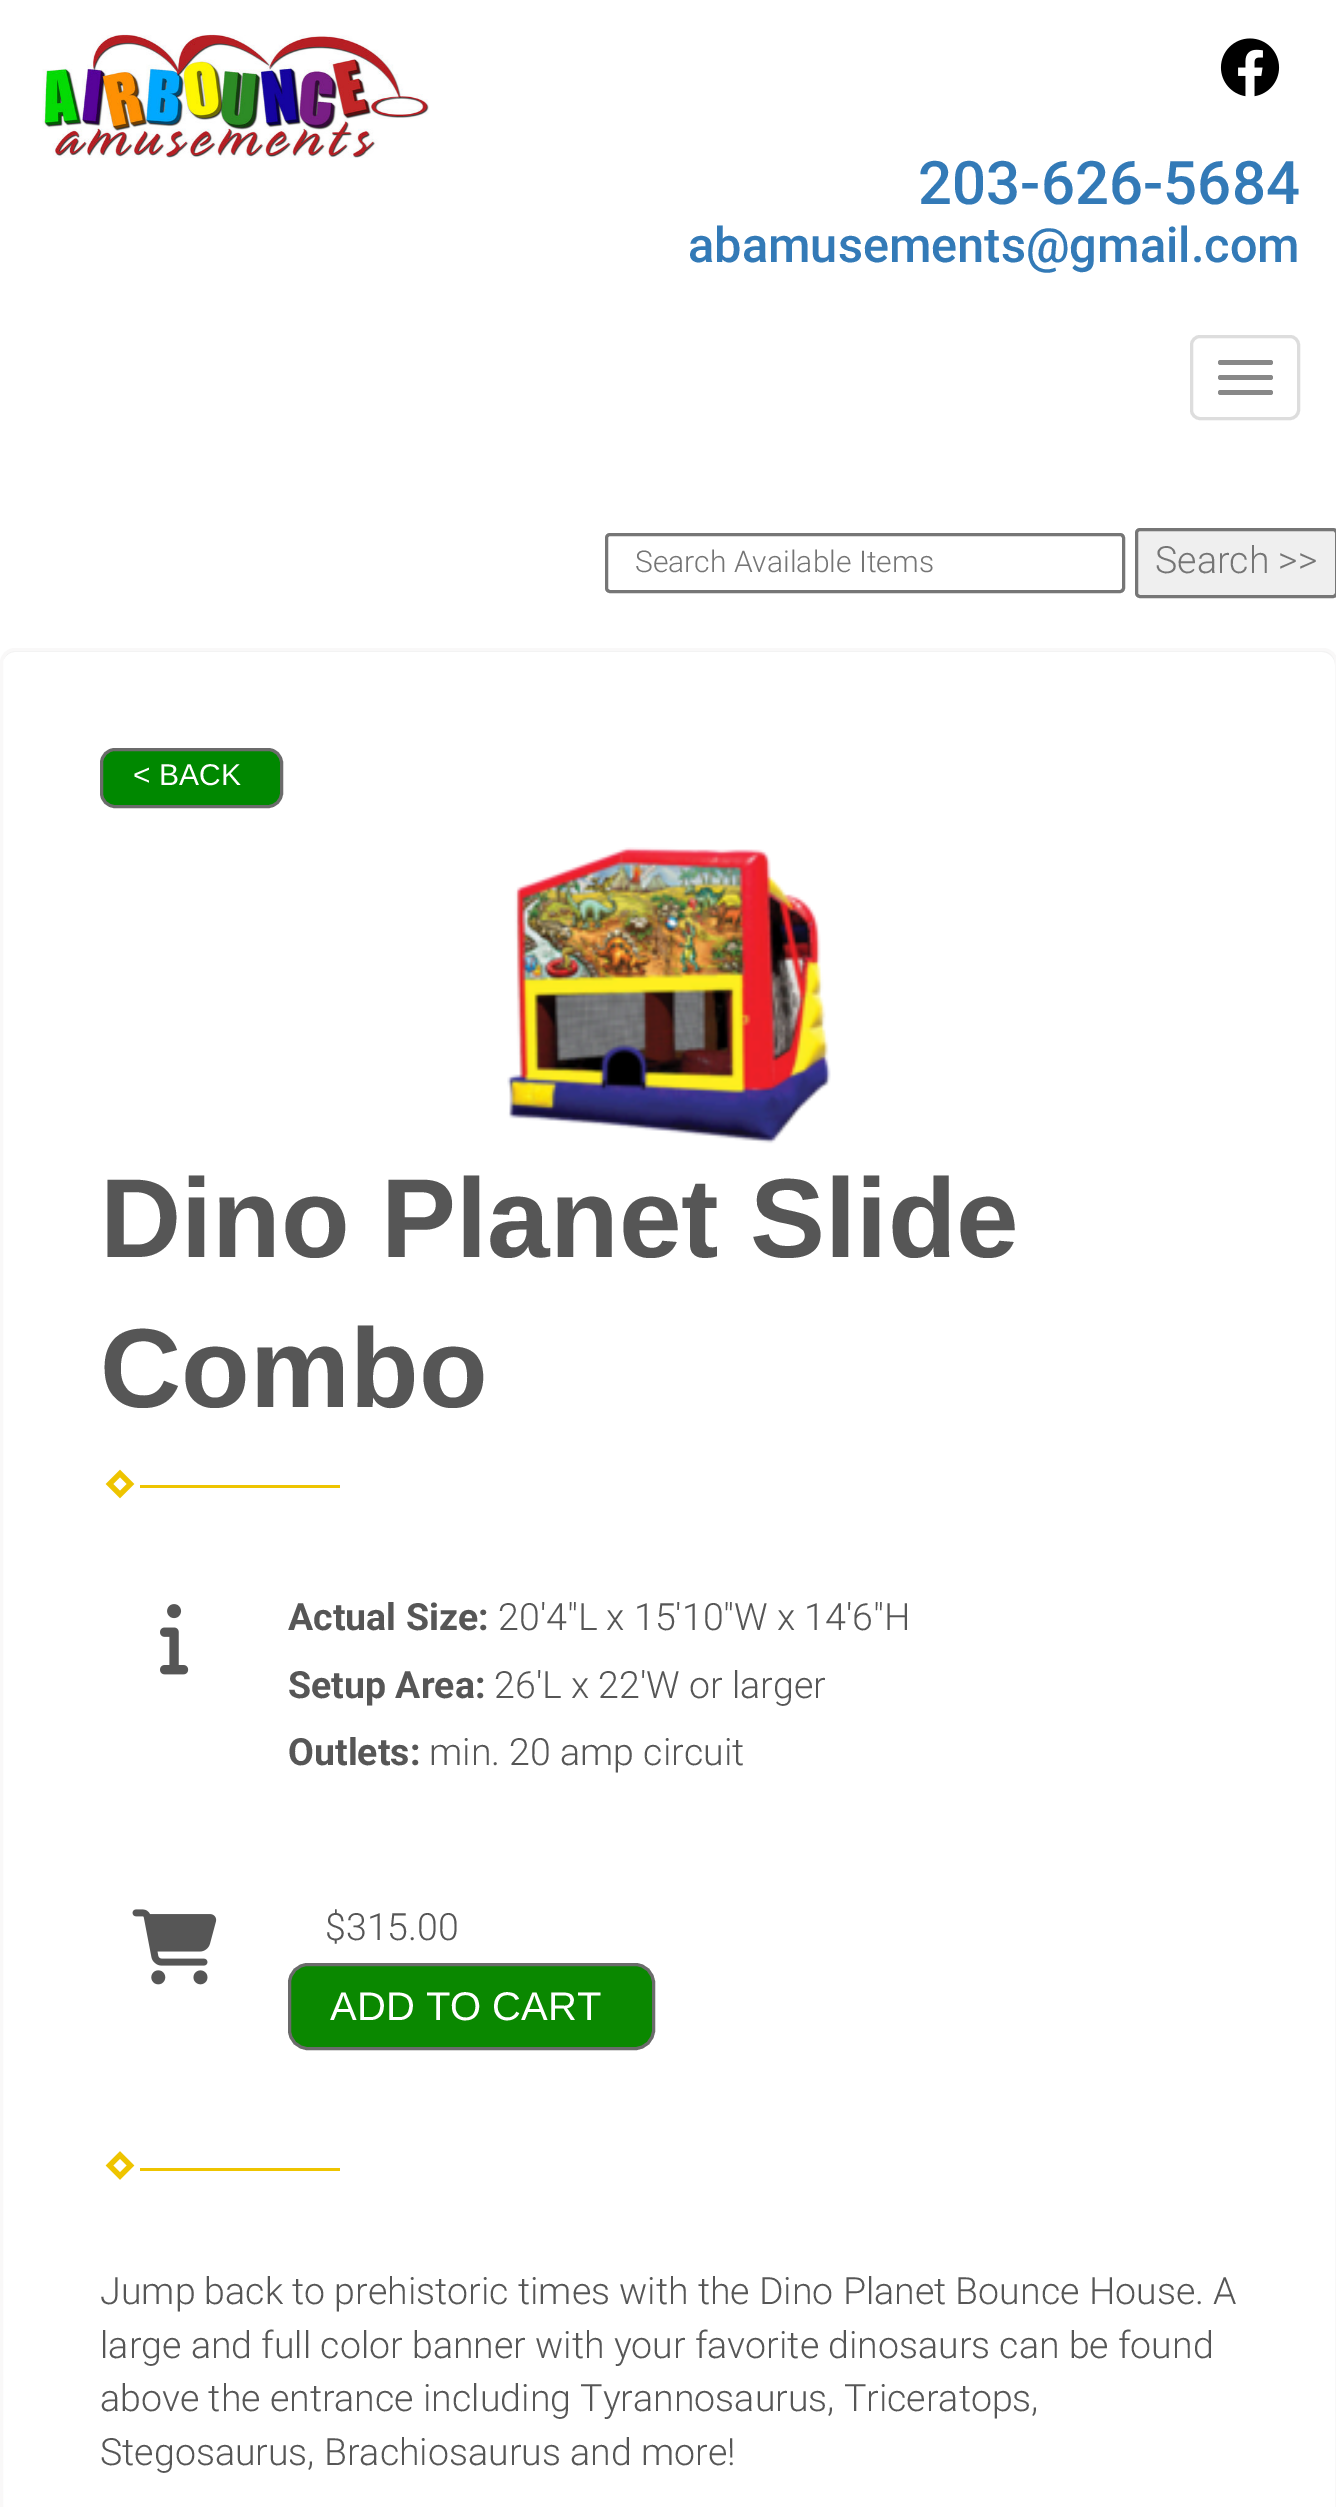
%!PS
<< /PageSize [1336 2507] >> setpagedevice
/rgb { 3 { 255 div 3 1 roll } repeat setrgbcolor } def
/font { [ exch dup neg 0 0 3 -1 roll 0 0 ] selectfont } def
/roundrect { 5 dict begin { /r /h /w /y /x } { exch def } forall
  x r add y moveto x w add y 2 copy h add r arct x w add y h add x 1 index r arct
  x y h add x y r arct x y 2 copy exch w add exch r arct closepath end } def
/picture { 5 dict begin { /h /w /y /x /name } { exch def } forall
  gsave x y translate w h scale
  w h 8 [w 0 0 h 0 0] name (r) file false 3 colorimage grestore end } def
0 2507 translate 1 -1 scale
4 setmiterlimit
255 255 255 rgb
0 0 1336 2507 rectfill
(img/1.rgb) 42 34 387 124 picture
(img/2.rgb) 1220 38 60 59 picture
221 221 221 rgb
3 setlinewidth
1191.5 336.5 107 82 8.5 roundrect stroke
136 136 136 rgb
1218 360 55 5 2.5 roundrect fill
1218 375 55 5 2.5 roundrect fill
1218 390 55 5 2.5 roundrect fill
118 118 118 rgb
606.5 534.5 517 57 3.5 roundrect stroke
239 239 239 rgb
1136.5 529.5 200 67 3.5 roundrect gsave fill grestore
118 118 118 rgb
stroke
242 242 242 rgb
15 652 moveto 1322 652 lineto 1329 652 1335 658 1335 665 curveto 1335 663 lineto 1335 656 1329 650 1322 650 curveto 16 650 lineto 10 650 6 654 4 659 curveto 6 655 10 652 15 652 curveto closepath fill
249 248 248 rgb
1.5 649.5 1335 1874 13.5 roundrect stroke
0 136 0 rgb
101.5 749.5 180 57 13.5 roundrect gsave fill grestore
107 107 107 rgb
stroke
(img/3.rgb) 507 847 324 297 picture
238 196 0 rgb
5 setlinewidth
120 1473.5 moveto 130.5 1484 lineto 120 1494.5 lineto 109.5 1484 lineto closepath stroke
140 1485 200 3 rectfill
(img/4.rgb) 160 1604 29 71 picture
(img/5.rgb) 132 1909 85 76 picture
10 136 0 rgb
289.5 1964.5 364 84 18.5 roundrect gsave fill grestore
107 107 107 rgb
3 setlinewidth
stroke
238 196 0 rgb
5 setlinewidth
120 2155 moveto 130.5 2165.5 lineto 120 2176 lineto 109.5 2165.5 lineto closepath stroke
140 2168 200 3 rectfill
/Roboto-Medium 60 font
51 122 183 rgb
918 204 moveto (203-626-5684) show
/Roboto-Medium 48.75 font
688 262 moveto (abamusements@gmail.com) show
/Roboto-Light 30 font
117 117 117 rgb
635 572 moveto (Search Available Items) show
/Roboto-Light 37.5 font
1155 573 moveto (Search >>) show
/LiberationSans-Regular 30 font
255 255 255 rgb
133 785 moveto (< BACK) show
/LiberationSans-Bold 112.5 font
86 86 86 rgb
100 1257 moveto (Dino Planet Slide) show
100 1407 moveto (Combo) show
/Roboto-Bold 37.5 font
288 1630 moveto (Actual Size:) show
/Roboto-Light 37.5 font
498 1630 moveto (20'4"L x 15'10"W x 14'6"H) show
/Roboto-Bold 37.5 font
288 1698 moveto (Setup Area:) show
/Roboto-Light 37.5 font
494 1698 moveto (26'L x 22'W or larger) show
/Roboto-Bold 37.5 font
288 1765 moveto (Outlets:) show
/Roboto-Light 37.5 font
429 1765 moveto (min. 20 amp circuit) show
325 1940 moveto ($315.00) show
/LiberationSans-Regular 40 font
255 255 255 rgb
330 2020 moveto (ADD TO CART) show
/Roboto-Light 37.5 font
86 86 86 rgb
[
  [(Jump back to prehistoric times with the Dino Planet Bounce House. A) 100 2304]
  [(large and full color banner with your favorite dinosaurs can be found) 100 2358]
  [(above the entrance including Tyrannosaurus, Triceratops,) 100 2411]
  [(Stegosaurus, Brachiosaurus and more!) 100 2465]
] { aload pop moveto show } forall
showpage
